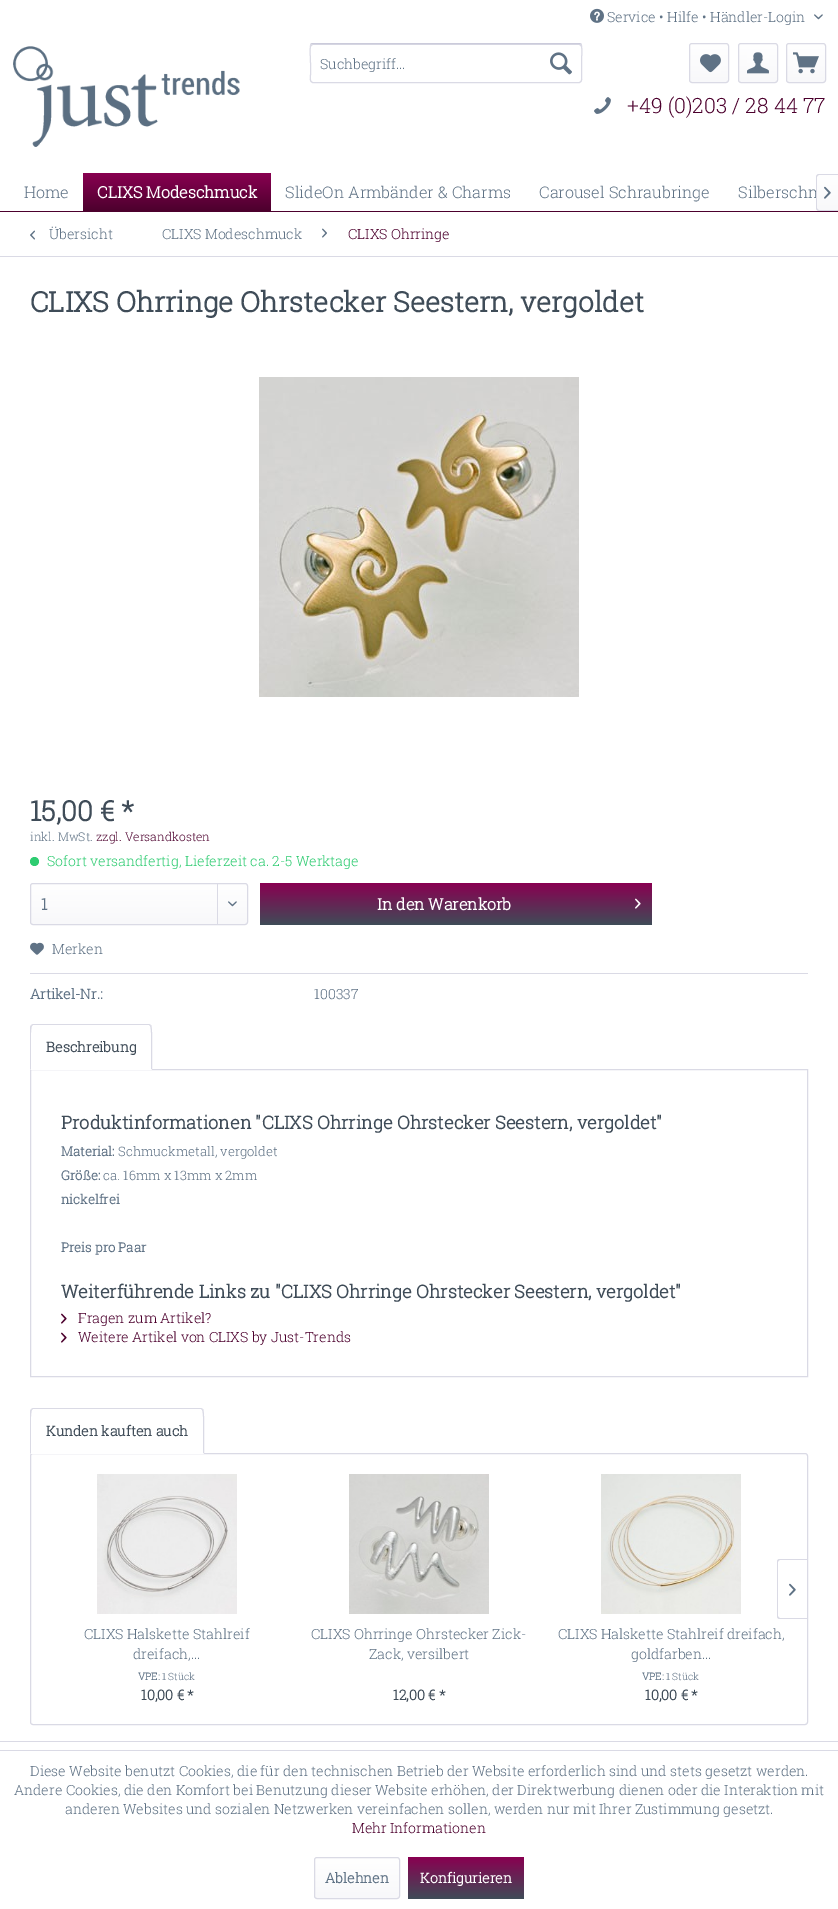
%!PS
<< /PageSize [838 1909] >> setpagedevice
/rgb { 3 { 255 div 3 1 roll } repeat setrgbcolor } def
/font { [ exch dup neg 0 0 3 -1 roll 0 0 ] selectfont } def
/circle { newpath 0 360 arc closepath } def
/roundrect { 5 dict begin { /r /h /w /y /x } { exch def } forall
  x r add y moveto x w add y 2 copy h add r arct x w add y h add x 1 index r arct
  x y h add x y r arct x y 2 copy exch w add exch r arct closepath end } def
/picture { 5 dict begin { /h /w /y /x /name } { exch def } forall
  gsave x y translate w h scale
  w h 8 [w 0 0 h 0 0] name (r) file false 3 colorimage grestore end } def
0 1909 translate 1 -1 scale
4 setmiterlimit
255 255 255 rgb
0 0 838 1909 rectfill
(img/1.rgb) 590 8 14 15 picture
(img/2.rgb) 814 14 9 6 picture
(img/3.rgb) 13 46 227 101 picture
218 218 229 rgb
313 45 moveto 579 45 lineto 580 45 581 46 581 47 curveto 581 46 581 44 579 44 curveto 313 44 lineto 311 45 lineto 311 47 lineto 311 46 312 45 313 45 curveto closepath fill
203 203 219 rgb
311 44 moveto 312.5 43.5 lineto 401.5 43.5 lineto 579 43.5 lineto 581 44 lineto stroke
218 218 229 rgb
581 44 moveto 582.5 46 581.5 60 581.5 63 curveto 581.5 74.5 lineto 581.5 76 583 82.5 579 82.5 curveto 313 82.5 lineto 309 82.5 310.5 76 310.5 74.5 curveto 310.5 63 lineto 310.5 60 309.5 46 311 44 curveto stroke
(img/4.rgb) 550 52 22 23 picture
gsave 690 44 38 38 2 roundrect clip newpath
<< /ShadingType 2 /ColorSpace /DeviceRGB /Coords [709 44 709 82] /Extend [true true] /Function << /FunctionType 2 /Domain [0 1] /C0 [1 1 1] /C1 [0.973 0.973 0.98] /N 1 >> >> shfill grestore
689.5 43.5 39 39 2.5 roundrect stroke
(img/5.rgb) 700 54 21 19 picture
gsave 739 44 38 38 2 roundrect clip newpath
<< /ShadingType 2 /ColorSpace /DeviceRGB /Coords [758 44 758 82] /Extend [true true] /Function << /FunctionType 2 /Domain [0 1] /C0 [1 1 1] /C1 [0.973 0.973 0.98] /N 1 >> >> shfill grestore
738.5 43.5 39 39 2.5 roundrect stroke
(img/6.rgb) 747 52 22 22 picture
gsave 787 44 38 38 2 roundrect clip newpath
<< /ShadingType 2 /ColorSpace /DeviceRGB /Coords [806 44 806 82] /Extend [true true] /Function << /FunctionType 2 /Domain [0 1] /C0 [1 1 1] /C1 [0.973 0.973 0.98] /N 1 >> >> shfill grestore
786.5 43.5 39 39 2.5 roundrect stroke
(img/7.rgb) 793 52 26 22 picture
(img/8.rgb) 594 97 17 17 picture
76 0 45 rgb
0 211 838 1 rectfill
gsave 86 173 moveto 268 173 lineto 269.5 173 271 174.5 271 176 curveto 271 211 lineto 83 211 lineto 83 176 lineto 83 174.5 84.5 173 86 173 curveto closepath clip newpath
<< /ShadingType 2 /ColorSpace /DeviceRGB /Coords [177 173 177 211] /Extend [true true] /Function << /FunctionType 2 /Domain [0 1] /C0 [0.537 0 0.318] /C1 [0.298 0 0.176] /N 1 >> >> shfill grestore
218 218 229 rgb
0 256 838 1 rectfill
(img/10.rgb) 30 230 5 10 picture
(img/11.rgb) 322 228 5 10 picture
(img/12.rgb) 259 377 320 320 picture
46 204 113 rgb
34.5 861.5 4.5 circle fill
gsave 31 884 216 40 2 roundrect clip newpath
<< /ShadingType 2 /ColorSpace /DeviceRGB /Coords [139 884 139 924] /Extend [true true] /Function << /FunctionType 2 /Domain [0 1] /C0 [1 1 1] /C1 [0.973 0.973 0.98] /N 1 >> >> shfill grestore
218 218 229 rgb
30.5 883.5 217 41 2.5 roundrect stroke
217 884 1 40 rectfill
(img/13.rgb) 228 901 9 6 picture
gsave 260 883 392 42 3 roundrect clip newpath
<< /ShadingType 2 /ColorSpace /DeviceRGB /Coords [456 883 456 925] /Extend [true true] /Function << /FunctionType 2 /Domain [0 1] /C0 [0.537 0 0.318] /C1 [0.247 0.298 0.345] /N 1 >> >> shfill grestore
(img/14.rgb) 635 898 6 11 picture
30 973 778 1 rectfill
(img/15.rgb) 30 942 14 13 picture
30.5 1069.5 777 307 rectstroke
255 255 255 rgb
33 1024 moveto 149 1024 lineto 150.5 1024 152 1025.5 152 1027 curveto 152 1070 lineto 30 1070 lineto 30 1027 lineto 30 1025.5 31.5 1024 33 1024 curveto closepath fill
218 218 229 rgb
33 1024 moveto 31 1025 lineto 32 1026 lineto 33 1025 lineto 149 1025 lineto 150 1026 lineto 151 1025 lineto 149 1024 lineto closepath fill
152 1070 moveto 152 1065 153 1027 151 1025 curveto 150 1026 lineto 152 1027 151 1064 151 1069 curveto closepath fill
255 255 255 rgb
152 1070 moveto 151 1069 lineto 31 1069 lineto 30 1070 lineto closepath fill
218 218 229 rgb
30 1070 moveto 31 1069 lineto 31 1064 30 1027 32 1026 curveto 31 1025 lineto 30 1027 lineto closepath fill
(img/16.rgb) 61 1313 6 11 picture
(img/16.rgb) 61 1332 6 11 picture
30.5 1453.5 777 271 2.5 roundrect stroke
255 255 255 rgb
33 1408 moveto 201 1408 lineto 202.5 1408 204 1409.5 204 1411 curveto 204 1454 lineto 30 1454 lineto 30 1411 lineto 30 1409.5 31.5 1408 33 1408 curveto closepath fill
218 218 229 rgb
33 1408 moveto 31 1409 lineto 32 1410 lineto 33 1409 lineto 201 1409 lineto 202 1410 lineto 203 1409 lineto 201 1408 lineto closepath fill
204 1454 moveto 204 1449 205 1411 203 1409 curveto 202 1410 lineto 204 1411 203 1448 203 1453 curveto closepath fill
255 255 255 rgb
204 1454 moveto 203 1453 lineto 31 1453 lineto 30 1454 lineto closepath fill
218 218 229 rgb
30 1454 moveto 31 1453 lineto 31 1448 30 1411 32 1410 curveto 31 1409 lineto 30 1411 lineto closepath fill
780 1559 moveto 807 1559 lineto 807 1619 lineto 780 1619 lineto 778 1619 777 1618 777 1616 curveto 777 1562 lineto 777 1560 778 1559 780 1559 curveto closepath 780 1560 moveto 807 1560 lineto 807 1618 lineto 780 1618 lineto 779 1618 778 1617 778 1616 curveto 778 1562 lineto 778 1561 779 1560 780 1560 curveto closepath eofill
(img/17.rgb) 789 1583 7 13 picture
(img/18.rgb) 97 1474 140 140 picture
(img/19.rgb) 349 1474 140 140 picture
(img/20.rgb) 601 1474 140 140 picture
0 1741 838 1 rectfill
0 1750 838 1 rectfill
gsave 315 1858 84 40 2 roundrect clip newpath
<< /ShadingType 2 /ColorSpace /DeviceRGB /Coords [357 1858 357 1898] /Extend [true true] /Function << /FunctionType 2 /Domain [0 1] /C0 [1 1 1] /C1 [0.973 0.973 0.98] /N 1 >> >> shfill grestore
314.5 1857.5 85 41 2.5 roundrect stroke
gsave 408 1857 116 42 3 roundrect clip newpath
<< /ShadingType 2 /ColorSpace /DeviceRGB /Coords [466 1857 466 1899] /Extend [true true] /Function << /FunctionType 2 /Domain [0 1] /C0 [0.537 0 0.318] /C1 [0.247 0.298 0.345] /N 1 >> >> shfill grestore
/RobotoSlab-Light 14 font
95 114 133 rgb
607 22 moveto (Service • Hilfe • Händler-Login) show
320 69 moveto (Suchbegriff...) show
/RobotoSlab-Light 21 font
76 0 45 rgb
627 113 moveto (+49 \(0\)203 / 28 44 77) show
/RobotoSlab-Light 16 font
95 114 133 rgb
24 198 moveto (Home) show
/RobotoSlab-Bold 16 font
255 255 255 rgb
97 198 moveto (CLIXS Modeschmuck) show
/RobotoSlab-Light 16 font
95 114 133 rgb
[
  [(SlideOn Armbänder & Charms) 285 198]
  [(Carousel Schraubringe) 539 198]
  [(Silberschm) 738 198]
] { aload pop moveto show } forall
gsave 819 175 moveto 838 175 lineto 838 210 lineto 819 210 lineto 818 210 817 209 817 208 curveto 817 177 lineto 817 176 818 175 819 175 curveto closepath clip newpath
<< /ShadingType 2 /ColorSpace /DeviceRGB /Coords [828 175 828 210] /Extend [true true] /Function << /FunctionType 2 /Domain [0 1] /C0 [1 1 1] /C1 [0.973 0.973 0.98] /N 1 >> >> shfill grestore
218 218 229 rgb
819 174 moveto 838 174 lineto 838 211 lineto 819 211 lineto 817.5 211 816 209.5 816 208 curveto 816 177 lineto 816 175.5 817.5 174 819 174 curveto closepath 819 175 moveto 838 175 lineto 838 210 lineto 819 210 lineto 818 210 817 209 817 208 curveto 817 177 lineto 817 176 818 175 819 175 curveto closepath eofill
(img/9.rgb) 824 186 7 13 picture
/RobotoSlab-Light 14 font
95 114 133 rgb
49 239 moveto (Übersicht) show
162 239 moveto (CLIXS Modeschmuck) show
76 0 45 rgb
348 239 moveto (CLIXS Ohrringe) show
/RobotoSlab-Bold 28 font
63 76 88 rgb
30 312 moveto (CLIXS Ohrringe Ohrstecker Seestern, vergoldet) show
30 821 moveto (15,00 € *) show
/RobotoSlab-Light 12 font
95 114 133 rgb
30 841 moveto (inkl. MwSt.) show
76 0 45 rgb
96 841 moveto (zzgl. Versandkosten) show
/RobotoSlab-Light 14 font
46 204 113 rgb
47 866 moveto (Sofort versandfertig, Lieferzeit ca. 2-5 Werktage) show
/RobotoSlab-Bold 16 font
95 114 133 rgb
41 910 moveto (1) show
255 255 255 rgb
377 910 moveto (In den Warenkorb) show
/RobotoSlab-Light 14 font
95 114 133 rgb
52 954 moveto (Merken) show
/RobotoSlab-Bold 14 font
30 999 moveto (Artikel-Nr.:) show
/RobotoSlab-Light 14 font
314 999 moveto (100337) show
/RobotoSlab-Bold 14 font
63 76 88 rgb
46 1052 moveto (Beschreibung) show
/RobotoSlab-Bold 18 font
61 1129 moveto (Produktinformationen "CLIXS Ohrringe Ohrstecker Seestern, vergoldet") show
/RobotoSlab-Bold 13 font
95 114 133 rgb
61 1156 moveto (Material:) show
/RobotoSlab-Light 13 font
118 1156 moveto (Schmuckmetall, vergoldet) show
/RobotoSlab-Bold 13 font
61 1180 moveto (Größe:) show
/RobotoSlab-Light 13 font
103 1180 moveto (ca. 16mm x 13mm x 2mm) show
/RobotoSlab-Bold 13 font
61 1204 moveto (nickelfrei) show
61 1252 moveto (Preis pro Paar) show
/RobotoSlab-Bold 18 font
63 76 88 rgb
61 1298 moveto (Weiterführende Links zu "CLIXS Ohrringe Ohrstecker Seestern, vergoldet") show
/RobotoSlab-Light 14 font
76 0 45 rgb
78 1323 moveto (Fragen zum Artikel?) show
78 1342 moveto (Weitere Artikel von CLIXS by Just-Trends) show
/RobotoSlab-Bold 14 font
63 76 88 rgb
46 1436 moveto (Kunden kauften auch) show
/RobotoSlab-Light 14 font
95 114 133 rgb
84 1639 moveto (CLIXS Halskette Stahlreif) show
133 1659 moveto (dreifach,...) show
/RobotoSlab-Bold 10 font
138 1680 moveto (VPE:) show
/RobotoSlab-Light 10 font
162 1680 moveto (1 Stück) show
/RobotoSlab-Bold 14 font
63 76 88 rgb
141 1700 moveto (10,00 € *) show
/RobotoSlab-Light 14 font
95 114 133 rgb
311 1639 moveto (CLIXS Ohrringe Ohrstecker Zick-) show
369 1659 moveto (Zack, versilbert) show
/RobotoSlab-Bold 14 font
63 76 88 rgb
393 1700 moveto (12,00 € *) show
/RobotoSlab-Light 14 font
95 114 133 rgb
558 1639 moveto (CLIXS Halskette Stahlreif dreifach,) show
631 1659 moveto (goldfarben...) show
/RobotoSlab-Bold 10 font
642 1680 moveto (VPE:) show
/RobotoSlab-Light 10 font
666 1680 moveto (1 Stück) show
/RobotoSlab-Bold 14 font
63 76 88 rgb
645 1700 moveto (10,00 € *) show
/RobotoSlab-Light 14 font
95 114 133 rgb
[
  [(Diese Website benutzt Cookies, die für den technischen Betrieb der Website erforderlich sind und stets gesetzt werden.) 30 1776]
  [(Andere Cookies, die den Komfort bei Benutzung dieser Website erhöhen, der Direktwerbung dienen oder die Interaktion mit) 14 1795]
  [(anderen Websites und sozialen Netzwerken vereinfachen sollen, werden nur mit Ihrer Zustimmung gesetzt.) 65 1814]
] { aload pop moveto show } forall
76 0 45 rgb
352 1833 moveto (Mehr Informationen) show
/RobotoSlab-Bold 14 font
95 114 133 rgb
325 1883 moveto (Ablehnen) show
255 255 255 rgb
420 1883 moveto (Konfigurieren) show
showpage
